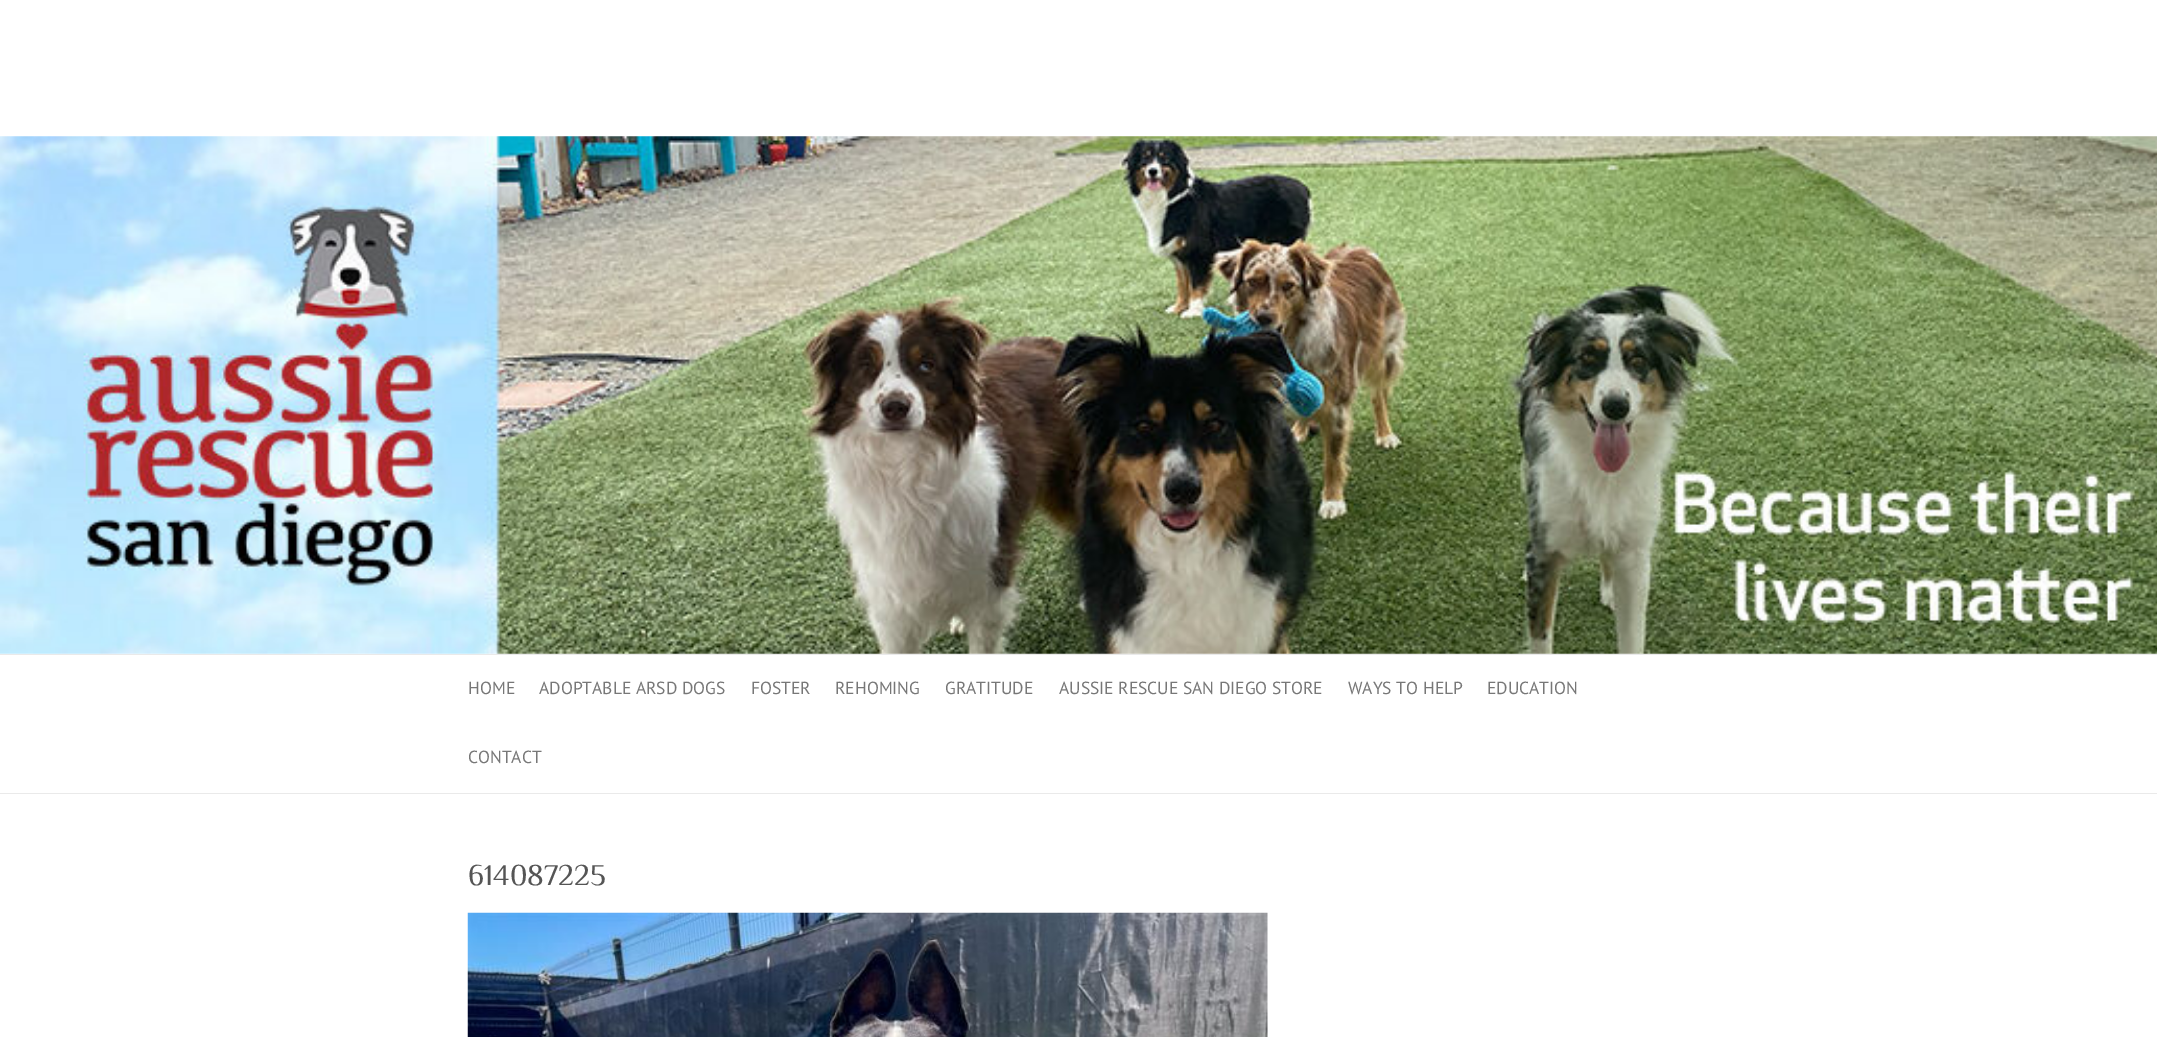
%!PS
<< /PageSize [2157 1037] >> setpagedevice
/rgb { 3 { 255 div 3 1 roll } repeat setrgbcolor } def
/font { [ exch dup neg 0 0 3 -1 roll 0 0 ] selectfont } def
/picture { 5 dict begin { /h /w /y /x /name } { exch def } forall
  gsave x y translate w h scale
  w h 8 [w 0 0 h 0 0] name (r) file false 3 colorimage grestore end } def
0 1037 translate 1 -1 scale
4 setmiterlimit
255 255 255 rgb
0 0 2157 1037 rectfill
(img/1.rgb) 0 136 2157 518 picture
234 234 234 rgb
0 654 2157 1 rectfill
0 793 2157 1 rectfill
(img/2.rgb) 467 912 801 125 picture
/PTSans-Regular 17.5 font
119 119 119 rgb
[
  [(HOME) 468 694]
  [(ADOPTABLE ARSD DOGS) 539 694]
  [(FOSTER) 751 694]
  [(REHOMING) 835 694]
  [(GRATITUDE) 945 694]
  [(AUSSIE RESCUE SAN DIEGO STORE) 1059 694]
  [(WAYS TO HELP) 1348 694]
  [(EDUCATION) 1487 694]
  [(CONTACT) 468 763]
] { aload pop moveto show } forall
/Philosopher-Regular 30 font
85 85 85 rgb
468 885 moveto (614087225) show
showpage
